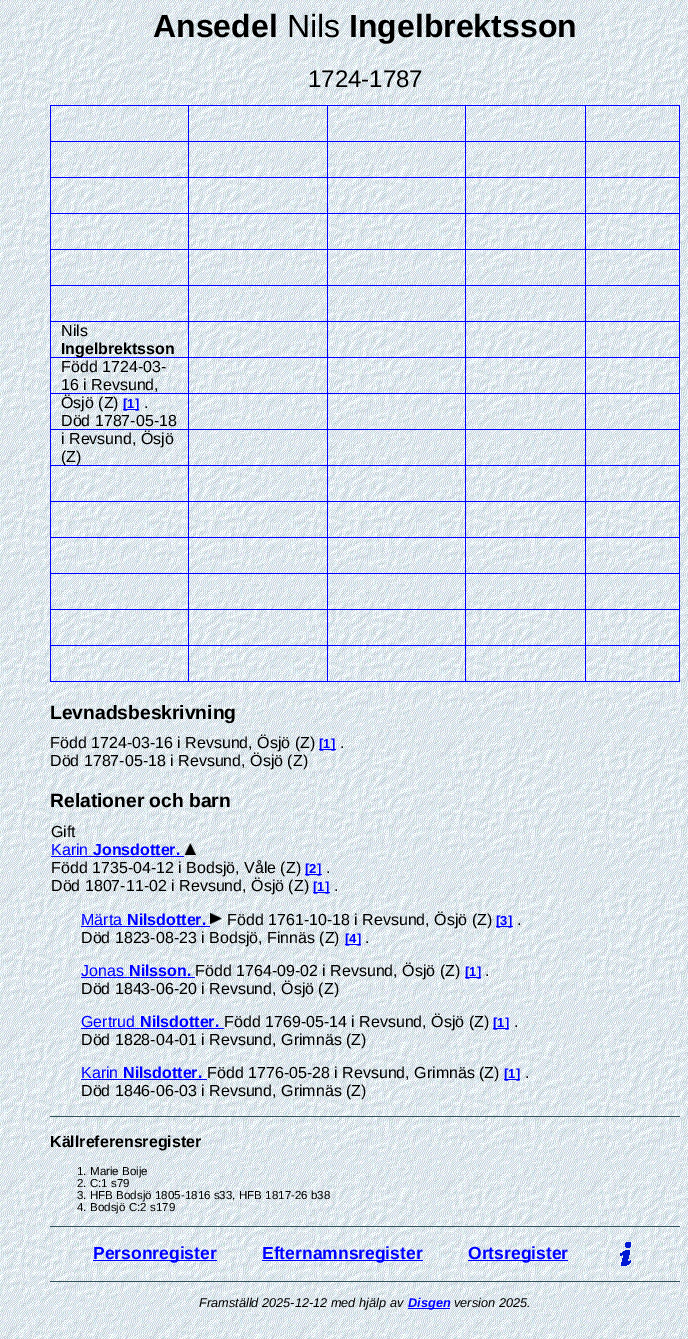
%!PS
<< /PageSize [688 1339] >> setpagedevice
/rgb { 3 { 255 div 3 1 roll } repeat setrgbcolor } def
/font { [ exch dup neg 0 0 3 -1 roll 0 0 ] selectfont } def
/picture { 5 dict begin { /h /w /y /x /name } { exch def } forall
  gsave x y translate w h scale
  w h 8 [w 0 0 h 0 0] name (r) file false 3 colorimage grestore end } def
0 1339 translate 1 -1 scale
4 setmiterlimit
255 255 255 rgb
0 0 688 1339 rectfill
(img/1.rgb) 0 0 688 1339 picture
[
  [50 105 630 1 0 0 255]
  [679 105 1 577 0 0 255]
  [50 681 630 1 0 0 255]
  [50 105 1 577 0 0 255]
  [50 645 630 1 0 0 255]
  [50 609 630 1 0 0 255]
  [50 537 630 1 0 0 255]
  [50 393 630 1 0 0 255]
  [50 141 630 1 0 0 255]
  [50 177 630 1 0 0 255]
  [50 213 630 1 0 0 255]
  [50 249 630 1 0 0 255]
  [50 285 630 1 0 0 255]
  [50 321 630 1 0 0 255]
  [50 357 630 1 0 0 255]
  [50 429 630 1 0 0 255]
  [50 465 630 1 0 0 255]
  [50 501 630 1 0 0 255]
  [50 573 630 1 0 0 255]
  [585 105 1 577 0 0 255]
  [465 105 1 577 0 0 255]
  [327 105 1 577 0 0 255]
  [188 105 1 577 0 0 255]
  [123 409 16 1 0 0 255]
  [319 749 17 1 0 0 255]
  [51 856 133 1 0 0 255]
] { aload pop rgb rectfill } forall
(img/2.rgb) 184 843 12 12 picture
[
  [305 874 17 1 0 0 255]
  [313 892 17 1 0 0 255]
  [81 926 129 1 0 0 255]
] { aload pop rgb rectfill } forall
(img/3.rgb) 210 913 12 12 picture
[
  [496 926 17 1 0 0 255]
  [345 944 16 1 0 0 255]
  [81 977 114 1 0 0 255]
  [465 977 4 1 0 0 255]
  [469 977 12 1 0 0 255]
  [81 1028 143 1 0 0 255]
  [493 1028 16 1 0 0 255]
  [81 1079 126 1 0 0 255]
  [504 1079 4 1 0 0 255]
  [508 1079 12 1 0 0 255]
  [50 1116 630 1 48 80 89]
  [50 1226 630 1 48 80 89]
  [50 1281 630 1 48 80 89]
  [93 1260 124 1 0 0 255]
  [262 1260 161 1 0 0 255]
  [468 1260 100 1 0 0 255]
] { aload pop rgb rectfill } forall
(img/4.rgb) 620 1242 11 24 picture
408 1308 42 1 rectfill
/LiberationSans-Bold 32 font
0 0 0 rgb
153 37 moveto (Ansedel) show
/LiberationSans-Regular 32 font
287 37 moveto (Nils) show
/LiberationSans-Bold 32 font
349 37 moveto (Ingelbrektsson) show
/LiberationSans-Regular 24 font
308 87 moveto (1724-1787) show
/LiberationSans-Regular 16 font
61 336 moveto (Nils) show
/LiberationSans-Bold 16 font
61 354 moveto (Ingelbrektsson) show
/LiberationSans-Regular 16 font
[
  [(Född 1724-03-) 61 372]
  [(16 i Revsund,) 61 390]
  [(Ösjö \(Z\)) 61 408]
] { aload pop moveto show } forall
/LiberationSans-Bold 13 font
0 0 255 rgb
123 408 moveto ([1]) show
/LiberationSans-Regular 16 font
0 0 0 rgb
[
  [(.) 144 408]
  [(Död 1787-05-18) 61 426]
  [(i Revsund, Ösjö) 61 444]
  [(\(Z\)) 61 462]
] { aload pop moveto show } forall
/LiberationSans-Bold 19.25 font
50 719 moveto (Levnadsbeskrivning) show
/LiberationSans-Regular 16 font
50 748 moveto (Född 1724-03-16 i Revsund, Ösjö \(Z\)) show
/LiberationSans-Bold 13 font
0 0 255 rgb
319 748 moveto ([1]) show
/LiberationSans-Regular 16 font
0 0 0 rgb
340 748 moveto (.) show
50 766 moveto (Död 1787-05-18 i Revsund, Ösjö \(Z\)) show
/LiberationSans-Bold 19.25 font
50 807 moveto (Relationer och barn) show
/LiberationSans-Regular 16 font
51 837 moveto (Gift) show
0 0 255 rgb
51 855 moveto (Karin) show
/LiberationSans-Bold 16 font
93 855 moveto (Jonsdotter.) show
/LiberationSans-Regular 16 font
0 0 0 rgb
51 873 moveto (Född 1735-04-12 i Bodsjö, Våle \(Z\)) show
/LiberationSans-Bold 13 font
0 0 255 rgb
305 873 moveto ([2]) show
/LiberationSans-Regular 16 font
0 0 0 rgb
326 873 moveto (.) show
51 891 moveto (Död 1807-11-02 i Revsund, Ösjö \(Z\)) show
/LiberationSans-Bold 13 font
0 0 255 rgb
313 891 moveto ([1]) show
/LiberationSans-Regular 16 font
0 0 0 rgb
334 891 moveto (.) show
0 0 255 rgb
81 925 moveto (Märta) show
/LiberationSans-Bold 16 font
127 925 moveto (Nilsdotter.) show
/LiberationSans-Regular 16 font
0 0 0 rgb
227 925 moveto (Född 1761-10-18 i Revsund, Ösjö \(Z\)) show
/LiberationSans-Bold 13 font
0 0 255 rgb
496 925 moveto ([3]) show
/LiberationSans-Regular 16 font
0 0 0 rgb
517 925 moveto (.) show
81 943 moveto (Död 1823-08-23 i Bodsjö, Finnäs \(Z\)) show
/LiberationSans-Bold 13 font
0 0 255 rgb
345 943 moveto ([4]) show
/LiberationSans-Regular 16 font
0 0 0 rgb
365 943 moveto (.) show
0 0 255 rgb
81 976 moveto (Jonas) show
/LiberationSans-Bold 16 font
129 976 moveto (Nilsson.) show
/LiberationSans-Regular 16 font
0 0 0 rgb
195 976 moveto (Född 1764-09-02 i Revsund, Ösjö \(Z\)) show
/LiberationSans-Bold 13 font
0 0 255 rgb
465 976 moveto ([1) show
477 976 moveto (]) show
/LiberationSans-Regular 16 font
0 0 0 rgb
485 976 moveto (.) show
81 994 moveto (Död 1843-06-20 i Revsund, Ösjö \(Z\)) show
0 0 255 rgb
81 1027 moveto (Gertrud) show
/LiberationSans-Bold 16 font
140 1027 moveto (Nilsdotter.) show
/LiberationSans-Regular 16 font
0 0 0 rgb
224 1027 moveto (Född 1769-05-14 i Revsund, Ösjö \(Z\)) show
/LiberationSans-Bold 13 font
0 0 255 rgb
493 1027 moveto ([1]) show
/LiberationSans-Regular 16 font
0 0 0 rgb
514 1027 moveto (.) show
81 1045 moveto (Död 1828-04-01 i Revsund, Grimnäs \(Z\)) show
0 0 255 rgb
81 1078 moveto (Karin) show
/LiberationSans-Bold 16 font
123 1078 moveto (Nilsdotter.) show
/LiberationSans-Regular 16 font
0 0 0 rgb
207 1078 moveto (Född 1776-05-28 i Revsund, Grimnäs \(Z\)) show
/LiberationSans-Bold 13 font
0 0 255 rgb
504 1078 moveto ([1) show
516 1078 moveto (]) show
/LiberationSans-Regular 16 font
0 0 0 rgb
525 1078 moveto (.) show
81 1096 moveto (Död 1846-06-03 i Revsund, Grimnäs \(Z\)) show
/LiberationSans-Bold 16 font
50 1147 moveto (Källreferensregister) show
/LiberationSans-Regular 11.6 font
[
  [(1. Marie Boije) 77 1175]
  [(2. C:1 s79) 77 1187]
  [(3. HFB Bodsjö 1805-1816 s33, HFB 1817-26 b38) 77 1199]
  [(4. Bodsjö C:2 s179) 77 1211]
] { aload pop moveto show } forall
/LiberationSans-Bold 17.5 font
0 0 255 rgb
[
  [(Personregister) 93 1259]
  [(Efternamnsregister) 262 1259]
  [(Ortsregister) 468 1259]
] { aload pop moveto show } forall
/LiberationSans-Italic 12.75 font
0 0 0 rgb
199 1307 moveto (Framställd 2025-12-12 med hjälp av) show
/LiberationSans-BoldItalic 12.75 font
0 0 255 rgb
408 1307 moveto (Disgen) show
/LiberationSans-Italic 12.75 font
0 0 0 rgb
454 1307 moveto (version 2025.) show
showpage
